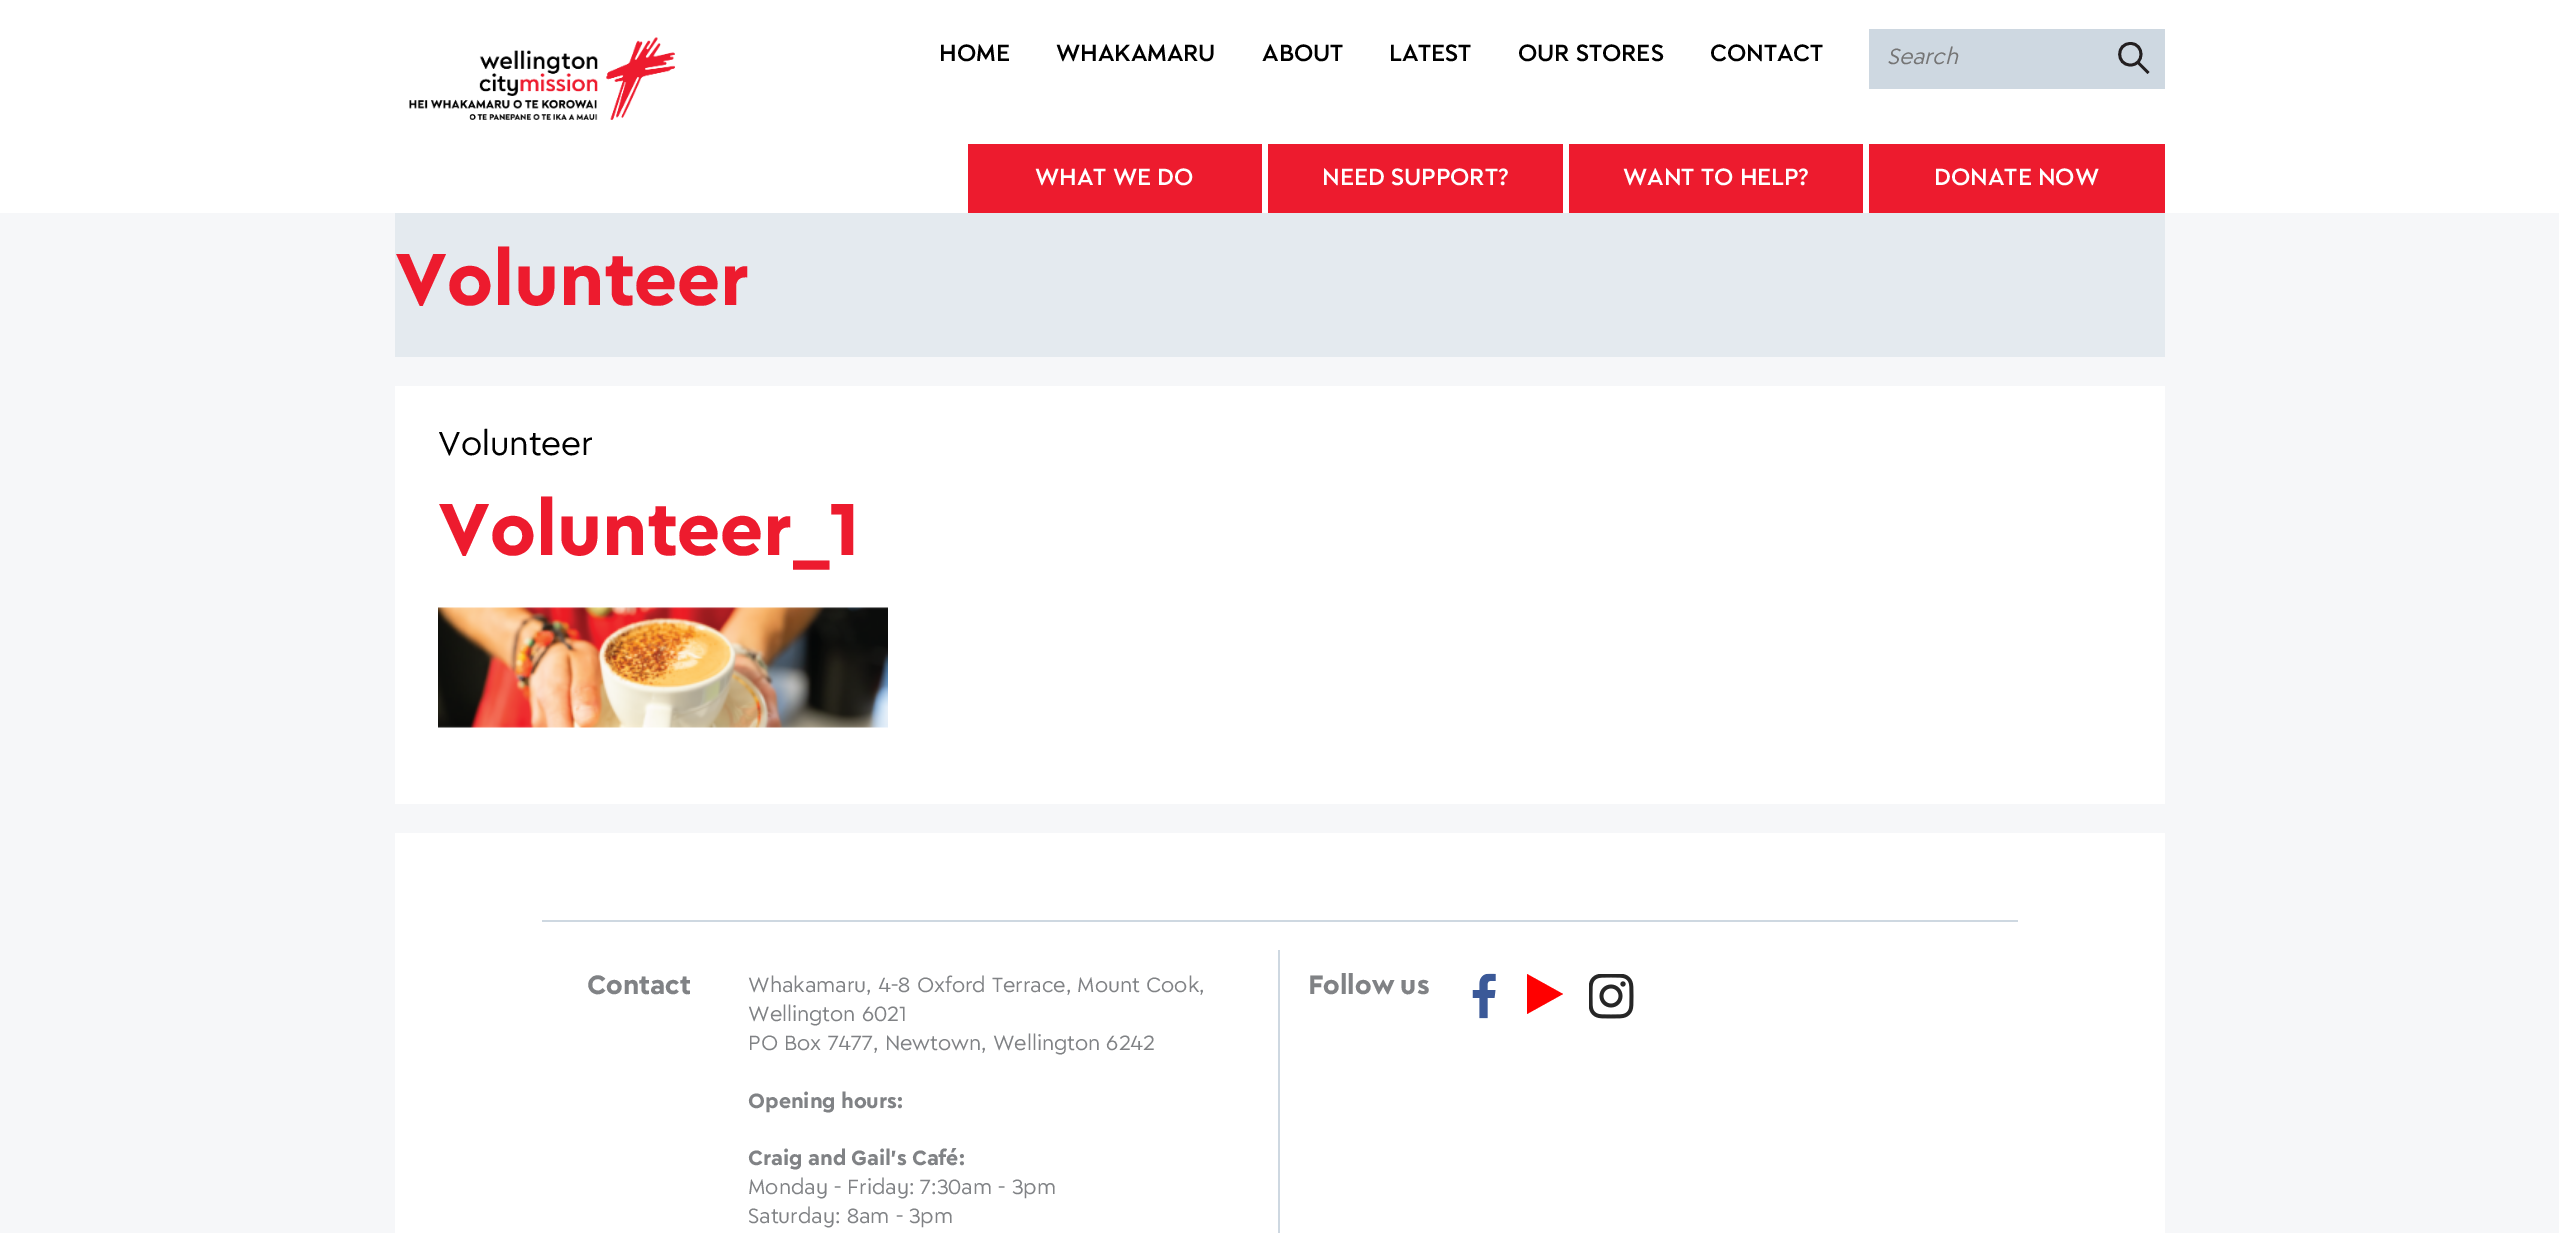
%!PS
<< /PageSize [2559 1233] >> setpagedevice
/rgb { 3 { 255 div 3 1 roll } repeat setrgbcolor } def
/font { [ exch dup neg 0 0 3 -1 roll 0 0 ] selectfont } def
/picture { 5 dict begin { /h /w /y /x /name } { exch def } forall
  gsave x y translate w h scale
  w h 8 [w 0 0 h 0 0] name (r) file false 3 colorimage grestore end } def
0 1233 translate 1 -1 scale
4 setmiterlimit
246 247 249 rgb
0 0 2559 1233 rectfill
255 255 255 rgb
0 0 2559 213 rectfill
(img/1.rgb) 409 37 266 83 picture
206 216 225 rgb
1869 29 296 60 rectfill
35 31 32 rgb
2.8 setlinewidth
2130.5 65 moveto 2144.5 65 2144.5 43.5 2130.5 43.5 curveto 2116 43.5 2116 65 2130.5 65 curveto closepath 2137 61.5 moveto 2148.5 73 lineto stroke
[
  [968 144 294 69 237 27 46]
  [1268 144 295 69 237 27 46]
  [1569 144 294 69 237 27 46]
  [1869 144 296 69 237 27 46]
  [395 213 1770 144 228 234 239]
  [395 386 1770 418 255 255 255]
] { aload pop rgb rectfill } forall
(img/2.rgb) 438 607 450 121 picture
[
  [395 833 1770 400 255 255 255]
  [542 920 1476 2 206 216 225]
  [1278 950 2 283 206 216 225]
] { aload pop rgb rectfill } forall
(img/3.rgb) 1472 973 24 46 picture
255 0 0 rgb
1527 974 moveto 1527 1014 lineto 1563 994 lineto closepath eofill
(img/4.rgb) 1589 974 45 45 picture
/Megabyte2-Regular 23 font
0 0 0 rgb
[
  [(HOME) 939 61]
  [(WHAKAMARU) 1056 61]
  [(ABOUT) 1262 61]
  [(LATEST) 1389 61]
  [(OUR STORES) 1518 61]
  [(CONTACT) 1710 61]
] { aload pop moveto show } forall
/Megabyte-Italic 21.5 font
117 117 117 rgb
1887 64 moveto (Search) show
/Megabyte2-Regular 23 font
255 255 255 rgb
[
  [(WHAT WE DO) 1035 185]
  [(NEED SUPPORT?) 1322 185]
  [(WANT TO HELP?) 1623 185]
  [(DONATE NOW) 1934 185]
] { aload pop moveto show } forall
/Megabyte-Bold 72 font
237 27 46 rgb
395 305 moveto (Volunteer) show
/Megabyte-Regular 32.5 font
0 0 0 rgb
438 455 moveto (Volunteer) show
/Megabyte-Bold 72 font
237 27 46 rgb
438 555 moveto (Volunteer_1) show
/Megabyte-Bold 26 font
128 130 133 rgb
587 994 moveto (Contact) show
/Megabyte-Regular 20.2 font
[
  [(Whakamaru, 4-8 Oxford Terrace, Mount Cook,) 748 992]
  [(Wellington 6021) 748 1021]
  [(PO Box 7477, Newtown, Wellington 6242) 748 1050]
] { aload pop moveto show } forall
/Megabyte-Bold 20.2 font
748 1108 moveto (Opening hours:) show
748 1165 moveto (Craig and Gail's Café:) show
/Megabyte-Regular 20.2 font
748 1194 moveto (Monday - Friday: 7:30am - 3pm) show
748 1223 moveto (Saturday: 8am - 3pm) show
/Megabyte-Bold 26 font
1308 994 moveto (Follow us) show
showpage
